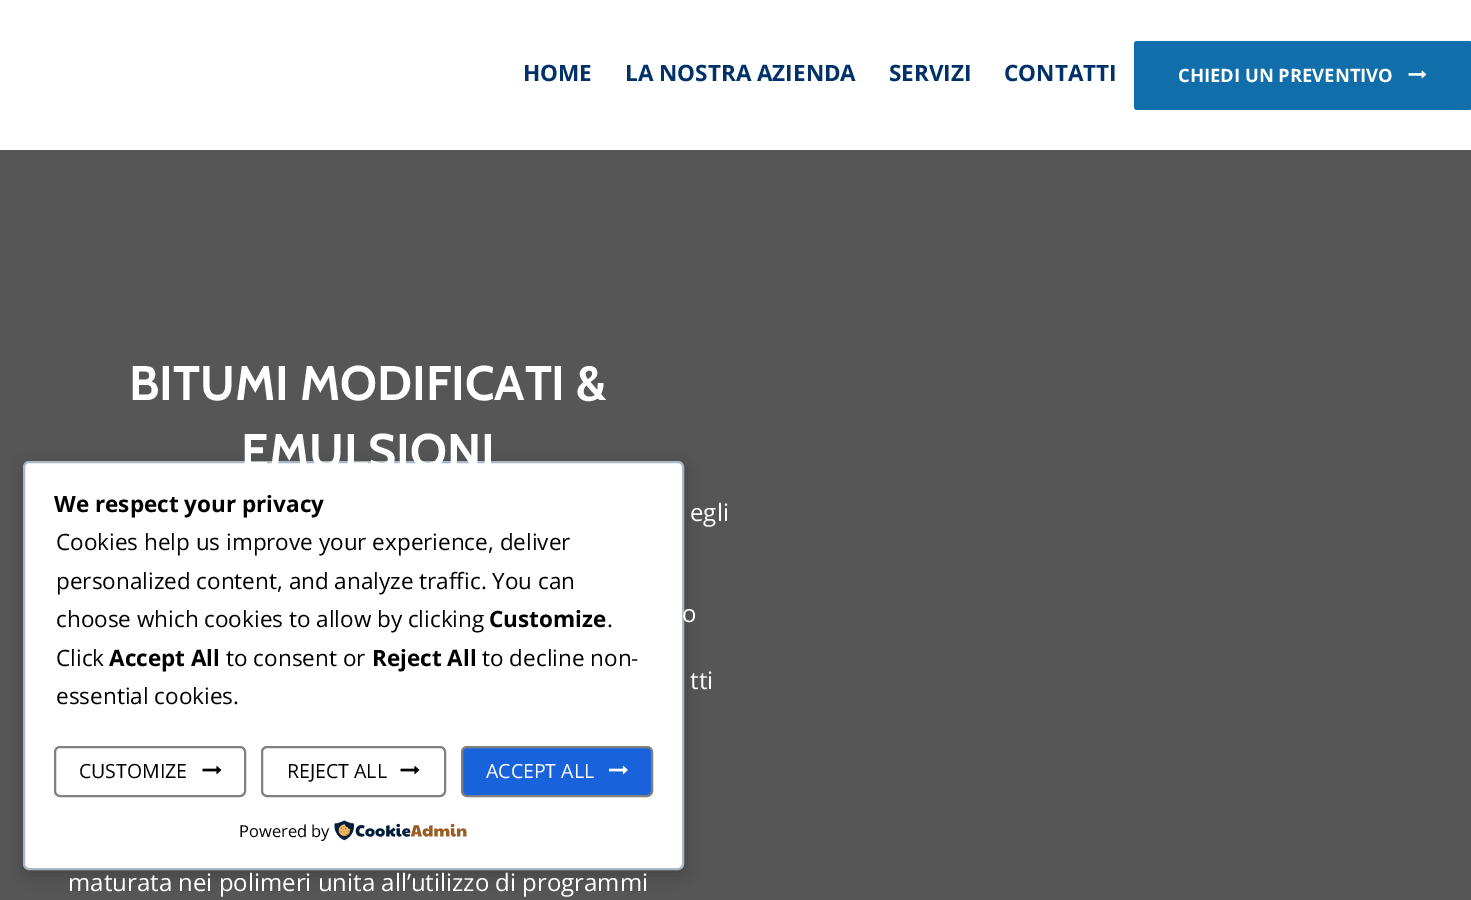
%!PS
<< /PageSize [1471 900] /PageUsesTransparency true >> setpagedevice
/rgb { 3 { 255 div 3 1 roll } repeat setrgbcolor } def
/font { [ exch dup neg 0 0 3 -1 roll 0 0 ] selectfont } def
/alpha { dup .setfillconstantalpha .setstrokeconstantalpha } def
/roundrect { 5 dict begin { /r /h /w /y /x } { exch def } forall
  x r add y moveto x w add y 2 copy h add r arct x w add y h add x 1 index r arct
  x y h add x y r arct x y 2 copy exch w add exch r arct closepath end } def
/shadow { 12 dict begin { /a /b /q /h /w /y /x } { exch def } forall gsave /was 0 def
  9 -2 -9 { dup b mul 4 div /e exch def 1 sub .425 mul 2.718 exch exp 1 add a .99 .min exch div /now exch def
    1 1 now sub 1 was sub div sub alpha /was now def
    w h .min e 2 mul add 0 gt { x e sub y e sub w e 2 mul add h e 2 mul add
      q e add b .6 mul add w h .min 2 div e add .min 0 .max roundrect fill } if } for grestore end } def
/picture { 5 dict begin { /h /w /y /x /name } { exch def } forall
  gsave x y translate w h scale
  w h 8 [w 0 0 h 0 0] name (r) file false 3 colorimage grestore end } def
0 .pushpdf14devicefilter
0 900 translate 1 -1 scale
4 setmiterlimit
255 255 255 rgb
0 0 1471 900 rectfill
16 110 170 rgb
1134 41 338 69 3 roundrect fill
(img/1.rgb) 1408 70 19 9 picture
86 86 86 rgb
0 150 1471 750 rectfill
0 0 0 rgb
24 465 662 410 6 7.5 0.2 shadow
255 255 255 rgb
24 462 659 407 5 roundrect gsave fill grestore
171 184 195 rgb
2 setlinewidth
stroke
128 128 128 rgb
55 747 190 49 5 roundrect stroke
(img/2.rgb) 202 765 20 10 picture
262 747 183 49 5 roundrect stroke
(img/2.rgb) 400 765 20 10 picture
24 99 220 rgb
462 747 190 49 5 roundrect gsave fill grestore
128 128 128 rgb
stroke
(img/3.rgb) 609 765 19 10 picture
(img/4.rgb) 334 820 133 21 picture
/OpenSans-Bold 22.5 font
0 49 105 rgb
[
  [(HOME) 523 81]
  [(LA NOSTRA AZIENDA) 625 81]
  [(SERVIZI) 889 81]
  [(CONTATTI) 1004 81]
] { aload pop moveto show } forall
/OpenSans-Bold 18.4 font
255 255 255 rgb
1178 82 moveto (CHIEDI UN PREVENTIVO) show
/Cabin-Bold 48.5 font
129 400 moveto (BITUMI MODIFICATI &) show
241 468 moveto (EMULSIONI) show
/OpenSans-Regular 24 font
[
  [(egli) 690 521]
  [(o) 682 622]
  [(tti) 690 689]
  [(maturata nei polimeri unita all’utilizzo di programmi) 68 891]
] { aload pop moveto show } forall
/OpenSans-Bold 22.5 font
0 0 0 rgb
54 512 moveto (We respect your privacy) show
/OpenSans-Regular 22.5 font
[
  [(Cookies help us improve your experience, deliver) 56 550]
  [(personalized content, and analyze traffic. You can) 56 589]
  [(choose which cookies to allow by clicking) 56 627]
] { aload pop moveto show } forall
/OpenSans-Bold 22.5 font
489 627 moveto (Customize) show
/OpenSans-Regular 22.5 font
607 627 moveto (.) show
56 666 moveto (Click) show
/OpenSans-Bold 22.5 font
109 666 moveto (Accept All) show
/OpenSans-Regular 22.5 font
226 666 moveto (to consent or) show
/OpenSans-Bold 22.5 font
372 666 moveto (Reject All) show
/OpenSans-Regular 22.5 font
482 666 moveto (to decline non-) show
56 704 moveto (essential cookies.) show
/OpenSans-Regular 19.5 font
79 778 moveto (CUSTOMIZE) show
287 778 moveto (REJECT ALL) show
255 255 255 rgb
486 778 moveto (ACCEPT ALL) show
/OpenSans-Regular 16.5 font
0 0 0 rgb
239 837 moveto (Powered by) show
.poppdf14devicefilter showpage
